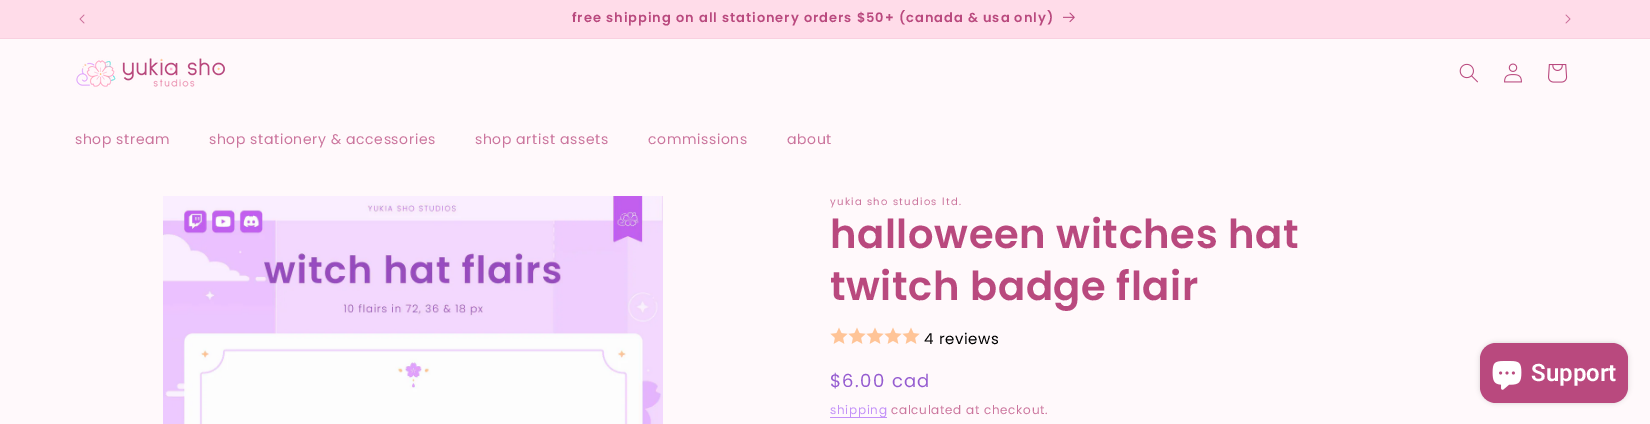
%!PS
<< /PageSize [1650 424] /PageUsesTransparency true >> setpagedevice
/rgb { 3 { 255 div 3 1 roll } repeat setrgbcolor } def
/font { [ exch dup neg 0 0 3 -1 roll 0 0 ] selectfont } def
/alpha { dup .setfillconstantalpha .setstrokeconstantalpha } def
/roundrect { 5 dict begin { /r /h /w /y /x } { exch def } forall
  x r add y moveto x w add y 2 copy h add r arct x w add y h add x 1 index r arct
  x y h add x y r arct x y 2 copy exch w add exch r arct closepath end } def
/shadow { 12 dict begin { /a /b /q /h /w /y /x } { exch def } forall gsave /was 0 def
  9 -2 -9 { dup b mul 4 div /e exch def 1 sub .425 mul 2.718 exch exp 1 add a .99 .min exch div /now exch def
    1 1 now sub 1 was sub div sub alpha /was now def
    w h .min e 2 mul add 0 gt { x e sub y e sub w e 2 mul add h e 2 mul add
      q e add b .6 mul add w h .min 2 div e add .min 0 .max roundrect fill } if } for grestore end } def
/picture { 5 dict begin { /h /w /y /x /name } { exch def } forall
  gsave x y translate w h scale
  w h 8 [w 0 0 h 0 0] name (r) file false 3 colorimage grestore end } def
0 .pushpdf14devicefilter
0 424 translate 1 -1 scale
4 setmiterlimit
255 249 251 rgb
0 0 1650 424 rectfill
255 220 233 rgb
0 0 1650 38 rectfill
249 208 224 rgb
0 38 1650 1 rectfill
(img/1.rgb) 79 14 6 10 picture
(img/2.rgb) 1063 12 12 11 picture
(img/3.rgb) 1565 14 6 10 picture
(img/4.rgb) 76 58 149 29 picture
(img/5.rgb) 1459 63 19 20 picture
(img/6.rgb) 1504 63 18 20 picture
(img/7.rgb) 1548 64 20 19 picture
(img/8.rgb) 163 196 500 228 picture
(img/9.rgb) 830 327 18 17 picture
(img/9.rgb) 848 327 18 17 picture
(img/9.rgb) 866 327 18 17 picture
(img/9.rgb) 884 327 18 17 picture
(img/9.rgb) 902 327 18 17 picture
196 145 248 rgb
830 417 57 1 rectfill
0 0 0 rgb
1480 343 148 60 16 2.5 0.15 shadow
185 73 126 rgb
1480 343 148 60 16 roundrect fill
(img/10.rgb) 1492 361 30 29 picture
/Poppins-SemiBold 13 font
572 22 moveto 1 0 (free shipping on all stationery orders $50+ \(canada & usa only\)) ashow
/Poppins-Regular 14 font
203 117 157 rgb
75 144 moveto 0.6 0 (shop stream) ashow
209 144 moveto 0.6 0 (shop stationery & accessories) ashow
475 144 moveto 0.6 0 (shop artist assets) ashow
648 144 moveto 0.6 0 (commissions) ashow
787 144 moveto 0.6 0 (about) ashow
/Poppins-Regular 10 font
830 205 moveto 1.3 0 (yukia sho studios ltd.) ashow
/Poppins-SemiBold 40 font
185 73 126 rgb
830 248 moveto 0.6 0 (halloween witches hat) ashow
830 300 moveto 0.6 0 (twitch badge flair) ashow
/Poppins-Regular 15 font
0 0 0 rgb
924 344 moveto 0.6 0 (4 reviews) ashow
/Poppins-Regular 18 font
149 92 208 rgb
830 387 moveto 1.3 0 ($6.00 cad) ashow
/Poppins-Regular 12 font
195 145 248 rgb
830 414 moveto 0.7 0 (shipping) ashow
203 117 157 rgb
891 414 moveto 0.7 0 (calculated at checkout.) ashow
/Roboto-SemiBold 24 font
255 255 255 rgb
1531 381 moveto (Support) show
.poppdf14devicefilter showpage
